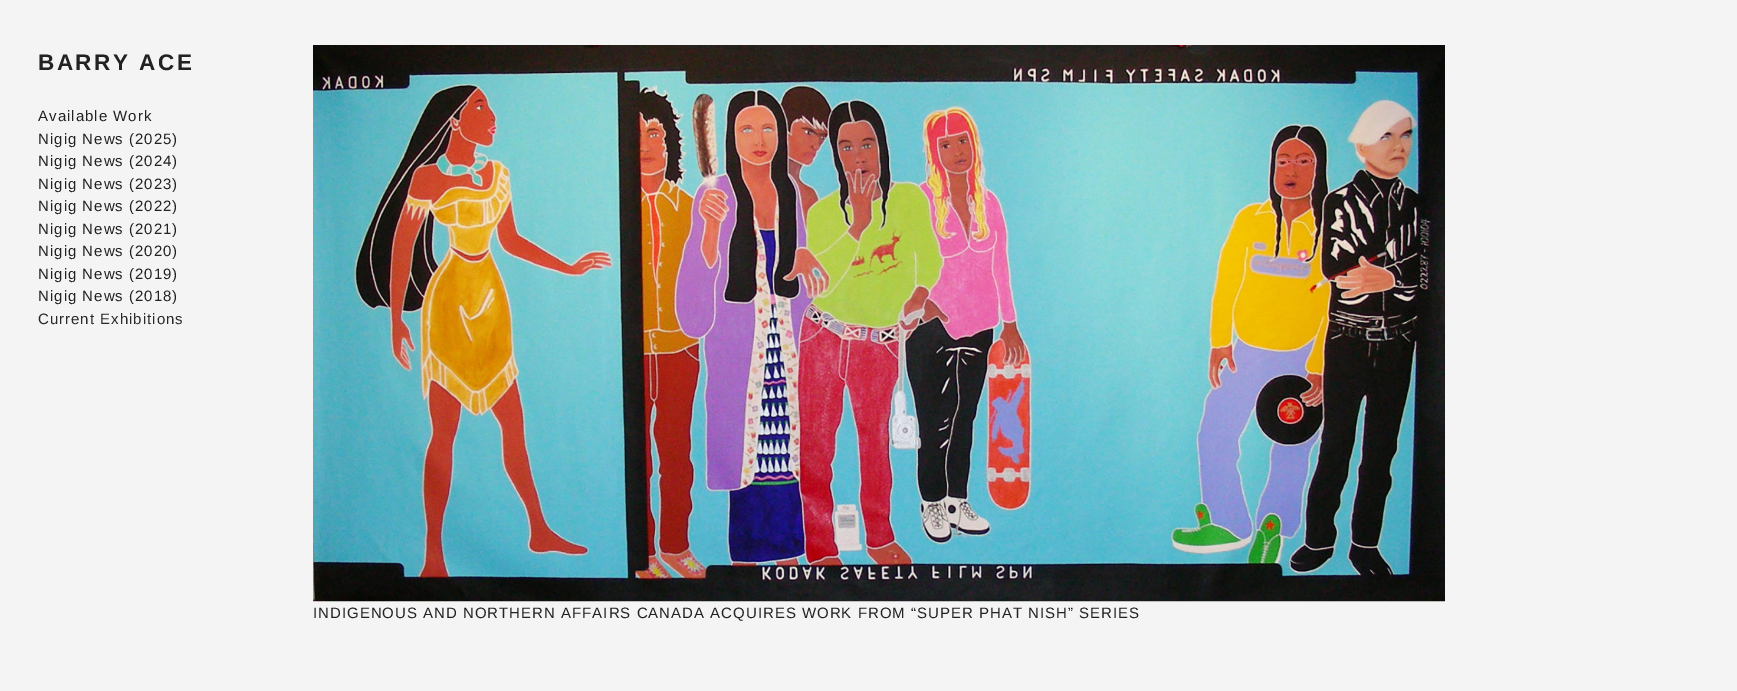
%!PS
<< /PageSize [1737 691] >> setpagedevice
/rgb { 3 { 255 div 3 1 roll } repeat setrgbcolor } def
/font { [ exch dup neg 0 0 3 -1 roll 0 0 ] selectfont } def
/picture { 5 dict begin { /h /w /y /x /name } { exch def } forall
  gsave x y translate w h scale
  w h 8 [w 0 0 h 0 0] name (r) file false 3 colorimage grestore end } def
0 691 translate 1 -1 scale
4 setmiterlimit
244 244 244 rgb
0 0 1737 691 rectfill
(img/1.rgb) 313 45 1132 557 picture
/LiberationSans-Bold 22.5 font
34 34 35 rgb
38 70 moveto 2.5 0 (BARRY ACE) ashow
/LiberationSans-Regular 15 font
38 121 moveto 1 0 (Available Work) ashow
38 144 moveto 1 0 (Nigig News \(2025\)) ashow
38 166 moveto 1 0 (Nigig News \(2024\)) ashow
38 189 moveto 1 0 (Nigig News \(2023\)) ashow
38 211 moveto 1 0 (Nigig News \(2022\)) ashow
38 234 moveto 1 0 (Nigig News \(2021\)) ashow
38 256 moveto 1 0 (Nigig News \(2020\)) ashow
38 279 moveto 1 0 (Nigig News \(2019\)) ashow
38 301 moveto 1 0 (Nigig News \(2018\)) ashow
41 41 42 rgb
38 324 moveto 1 0 (Current Exhibitions) ashow
34 34 35 rgb
313 618 moveto 1 0 (INDIGENOUS AND NORTHERN AFFAIRS CANADA ACQUIRES WORK FROM “SUPER PHAT NISH” SERIES) ashow
showpage
